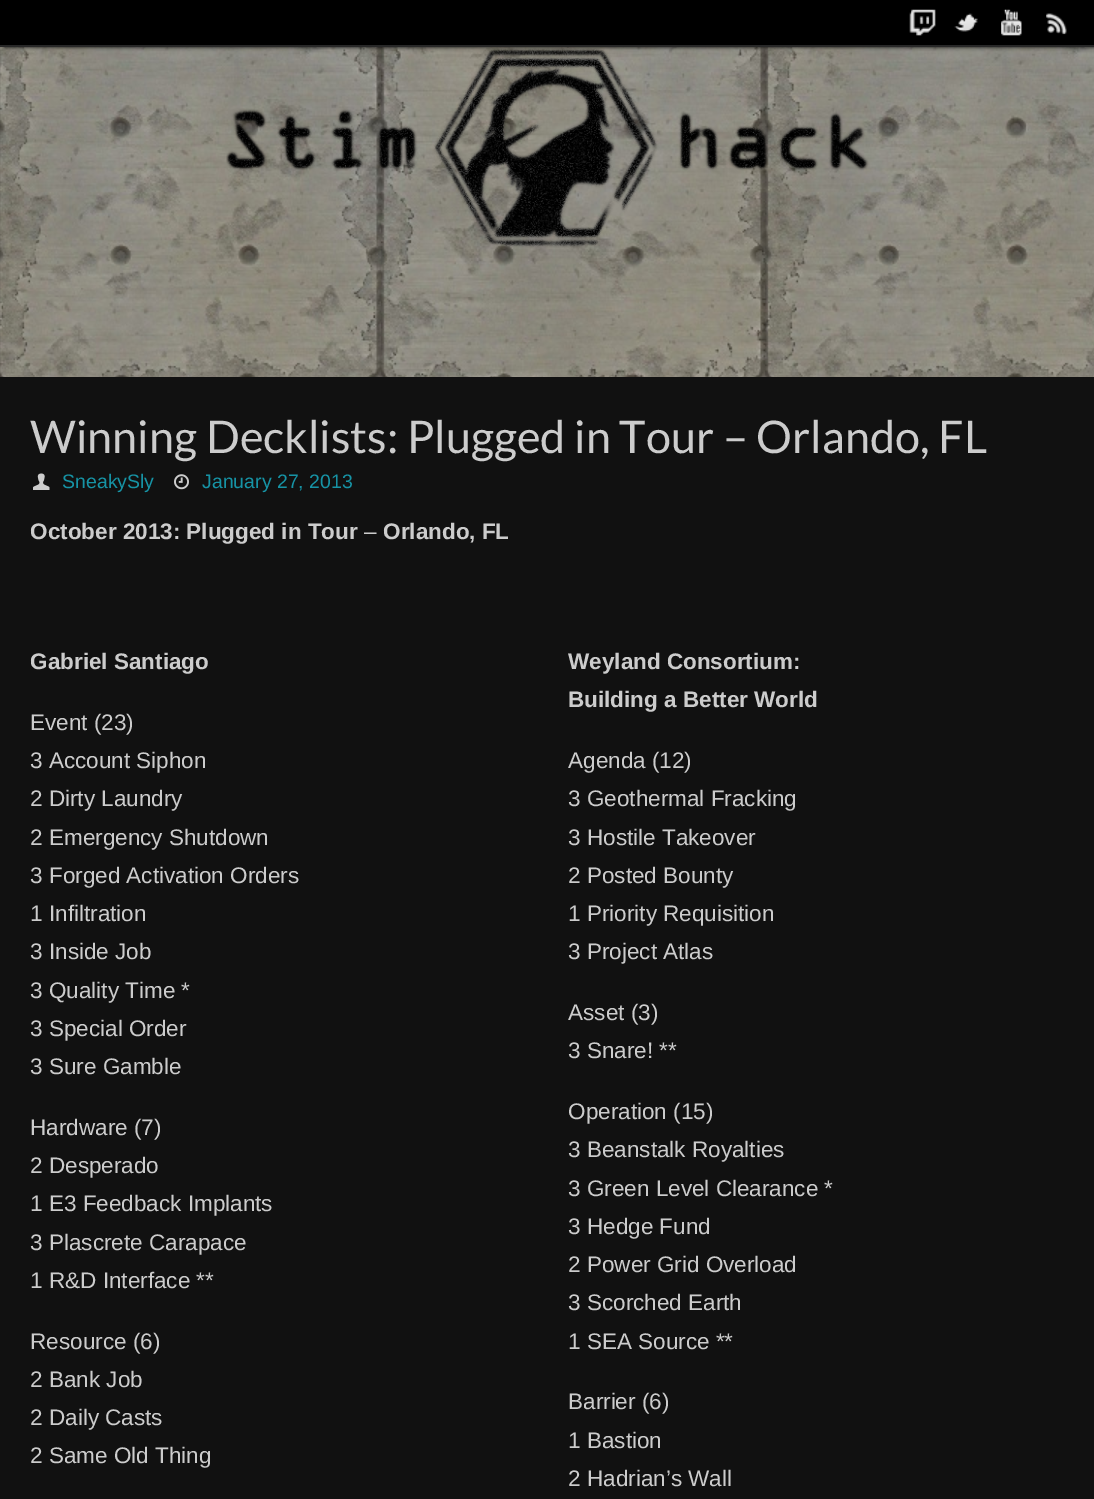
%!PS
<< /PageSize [1094 1499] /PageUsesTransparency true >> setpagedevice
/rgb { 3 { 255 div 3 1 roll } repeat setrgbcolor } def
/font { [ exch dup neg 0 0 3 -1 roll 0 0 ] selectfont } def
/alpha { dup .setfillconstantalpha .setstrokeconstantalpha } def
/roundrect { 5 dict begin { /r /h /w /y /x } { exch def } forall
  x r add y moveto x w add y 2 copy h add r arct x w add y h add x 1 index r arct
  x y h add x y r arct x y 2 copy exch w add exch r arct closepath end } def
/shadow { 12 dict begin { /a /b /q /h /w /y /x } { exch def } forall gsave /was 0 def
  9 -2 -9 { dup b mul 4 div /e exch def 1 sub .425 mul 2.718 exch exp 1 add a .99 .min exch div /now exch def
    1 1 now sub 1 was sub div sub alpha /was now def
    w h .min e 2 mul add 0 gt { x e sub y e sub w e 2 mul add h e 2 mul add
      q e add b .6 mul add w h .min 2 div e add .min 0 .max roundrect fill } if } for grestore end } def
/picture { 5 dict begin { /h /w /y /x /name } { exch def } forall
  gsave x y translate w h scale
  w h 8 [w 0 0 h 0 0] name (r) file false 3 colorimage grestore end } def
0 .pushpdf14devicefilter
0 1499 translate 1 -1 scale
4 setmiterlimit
255 255 255 rgb
0 0 1094 1499 rectfill
(img/1.rgb) 0 47 1094 330 picture
0 0 0 rgb
5 0 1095 47 0 2 1 shadow
0 0 1094 45 rectfill
40 40 40 rgb
0 45 1094 2 rectfill
(img/2.rgb) 909 9 27 27 picture
(img/3.rgb) 954 13 24 19 picture
(img/4.rgb) 1001 9 21 27 picture
(img/5.rgb) 1046 13 21 22 picture
(img/6.rgb) 226 48 643 200 picture
17 17 17 rgb
0 377 1094 1122 rectfill
(img/7.rgb) 33 473 17 17 picture
(img/8.rgb) 174 474 15 16 picture
/Lato-Regular 45 font
204 204 204 rgb
30 453 moveto (Winning Decklists: Plugged in Tour – Orlando, FL) show
/LiberationSans-Regular 19.5 font
22 147 165 rgb
62 488 moveto (SneakySly) show
202 488 moveto (January 27, 2013) show
/LiberationSans-Bold 22.5 font
204 204 204 rgb
30 539 moveto (October 2013: Plugged in Tour) show
/LiberationSans-Regular 22.5 font
364 539 moveto (–) show
/LiberationSans-Bold 22.5 font
383 539 moveto (Orlando, FL) show
30 669 moveto (Gabriel Santiago) show
/LiberationSans-Regular 22.5 font
[
  [(Event \(23\)) 30 730]
  [(3 Account Siphon) 30 768]
  [(2 Dirty Laundry) 30 806]
  [(2 Emergency Shutdown) 30 845]
  [(3 Forged Activation Orders) 30 883]
  [(1 Infiltration) 30 921]
  [(3 Inside Job) 30 959]
  [(3 Quality Time *) 30 998]
  [(3 Special Order) 30 1036]
  [(3 Sure Gamble) 30 1074]
  [(Hardware \(7\)) 30 1135]
  [(2 Desperado) 30 1173]
  [(1 E3 Feedback Implants) 30 1211]
  [(3 Plascrete Carapace) 30 1250]
  [(1 R&D Interface **) 30 1288]
  [(Resource \(6\)) 30 1349]
  [(2 Bank Job) 30 1387]
  [(2 Daily Casts) 30 1425]
  [(2 Same Old Thing) 30 1463]
] { aload pop moveto show } forall
/LiberationSans-Bold 22.5 font
568 669 moveto (Weyland Consortium:) show
568 707 moveto (Building a Better World) show
/LiberationSans-Regular 22.5 font
[
  [(Agenda \(12\)) 568 768]
  [(3 Geothermal Fracking) 568 806]
  [(3 Hostile Takeover) 568 845]
  [(2 Posted Bounty) 568 883]
  [(1 Priority Requisition) 568 921]
  [(3 Project Atlas) 568 959]
  [(Asset \(3\)) 568 1020]
  [(3 Snare! **) 568 1058]
  [(Operation \(15\)) 568 1119]
  [(3 Beanstalk Royalties) 568 1157]
  [(3 Green Level Clearance *) 568 1196]
  [(3 Hedge Fund) 568 1234]
  [(2 Power Grid Overload) 568 1272]
  [(3 Scorched Earth) 568 1310]
  [(1 SEA Source **) 568 1349]
  [(Barrier \(6\)) 568 1409]
  [(1 Bastion) 568 1448]
  [(2 Hadrian’s Wall) 568 1486]
] { aload pop moveto show } forall
.poppdf14devicefilter showpage
